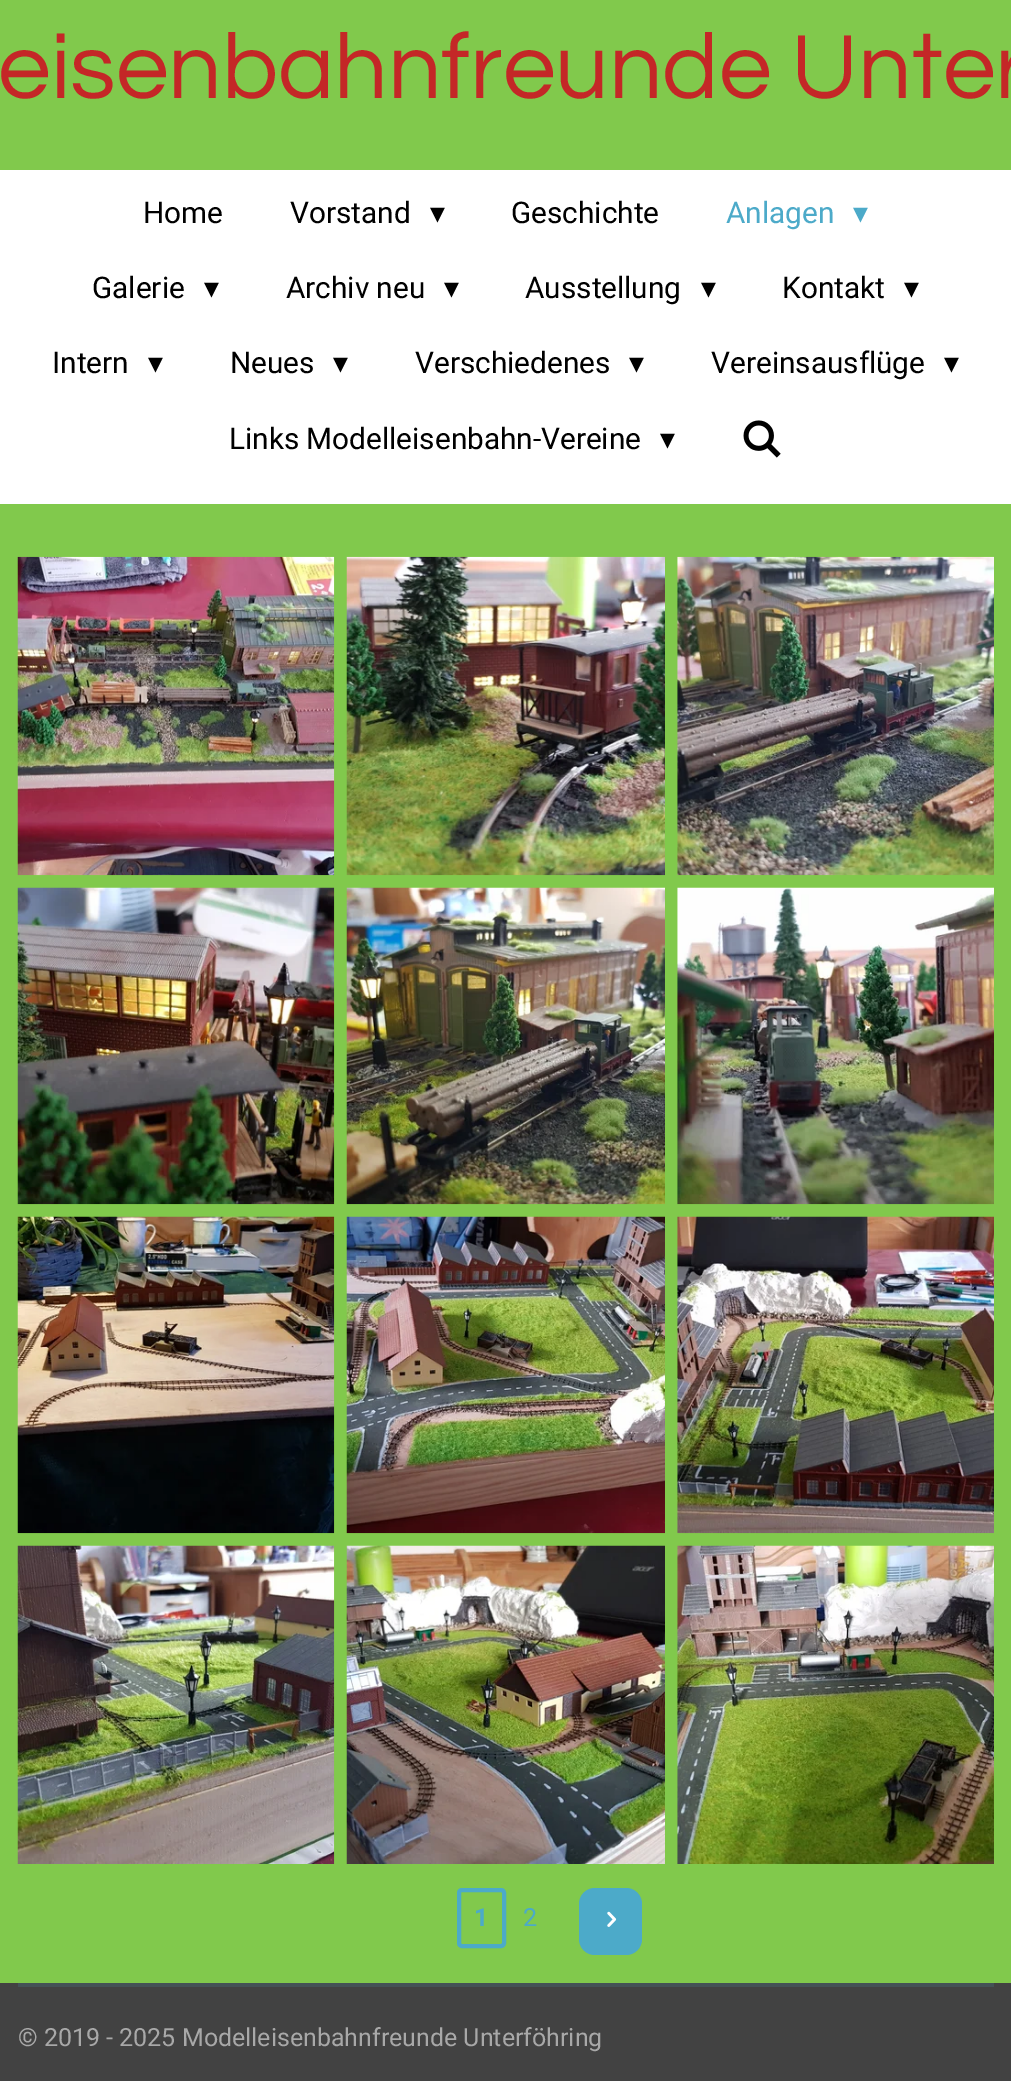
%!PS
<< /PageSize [1011 2081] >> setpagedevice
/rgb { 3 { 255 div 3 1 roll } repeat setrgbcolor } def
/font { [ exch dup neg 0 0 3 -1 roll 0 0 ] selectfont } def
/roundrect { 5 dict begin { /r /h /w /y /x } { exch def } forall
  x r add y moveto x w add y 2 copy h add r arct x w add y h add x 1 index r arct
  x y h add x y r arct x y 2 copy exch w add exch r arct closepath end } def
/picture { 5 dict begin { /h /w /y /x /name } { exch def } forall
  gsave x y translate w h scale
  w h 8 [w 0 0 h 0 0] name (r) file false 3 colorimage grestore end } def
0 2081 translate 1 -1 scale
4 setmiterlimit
129 201 76 rgb
0 0 1011 2081 rectfill
255 255 255 rgb
0 170 1011 334 rectfill
(img/1.rgb) 743 420 38 38 picture
(img/2.rgb) 17 556 318 320 picture
(img/3.rgb) 346 556 319 320 picture
(img/4.rgb) 677 556 317 320 picture
(img/5.rgb) 17 887 318 318 picture
(img/6.rgb) 346 887 319 318 picture
(img/7.rgb) 677 887 317 318 picture
(img/8.rgb) 17 1216 318 318 picture
(img/9.rgb) 346 1216 319 318 picture
(img/10.rgb) 677 1216 317 318 picture
(img/11.rgb) 17 1545 318 319 picture
(img/12.rgb) 346 1545 319 319 picture
(img/13.rgb) 677 1545 317 319 picture
76 170 201 rgb
4 setlinewidth
459 1890 45 56 3 roundrect stroke
579 1888 63 67 16 roundrect fill
(img/14.rgb) 607 1911 10 16 picture
66 66 66 rgb
0 1983 1011 98 rectfill
68 82 86 rgb
18 1983 976 4 rectfill
/Questrial-Regular 94.5 font
196 39 39 rgb
-2 98 moveto (eisenbahnfreunde Unter) show
/Roboto-Regular 29.75 font
0 0 0 rgb
143 223 moveto (Home) show
290 223 moveto (Vorstand) show
/DejaVuSans-Regular 29.75 font
430 223 moveto (▾) show
/Roboto-Regular 29.75 font
511 223 moveto (Geschichte) show
76 170 201 rgb
726 223 moveto (Anlagen) show
/DejaVuSans-Regular 29.75 font
853 223 moveto (▾) show
/Roboto-Regular 29.75 font
0 0 0 rgb
92 298 moveto (Galerie) show
/DejaVuSans-Regular 29.75 font
204 298 moveto (▾) show
/Roboto-Regular 29.75 font
286 298 moveto (Archiv neu) show
/DejaVuSans-Regular 29.75 font
444 298 moveto (▾) show
/Roboto-Regular 29.75 font
525 298 moveto (Ausstellung) show
/DejaVuSans-Regular 29.75 font
701 298 moveto (▾) show
/Roboto-Regular 29.75 font
782 298 moveto (Kontakt) show
/DejaVuSans-Regular 29.75 font
904 298 moveto (▾) show
/Roboto-Regular 29.75 font
52 373 moveto (Intern) show
/DejaVuSans-Regular 29.75 font
148 373 moveto (▾) show
/Roboto-Regular 29.75 font
230 373 moveto (Neues) show
/DejaVuSans-Regular 29.75 font
333 373 moveto (▾) show
/Roboto-Regular 29.75 font
415 373 moveto (Verschiedenes) show
/DejaVuSans-Regular 29.75 font
629 373 moveto (▾) show
/Roboto-Regular 29.75 font
711 373 moveto (Vereinsausflüge) show
/DejaVuSans-Regular 29.75 font
944 373 moveto (▾) show
/Roboto-Regular 29.75 font
229 449 moveto (Links Modelleisenbahn-Vereine) show
/DejaVuSans-Regular 29.75 font
660 449 moveto (▾) show
/Roboto-Bold 25 font
76 170 201 rgb
474 1926 moveto (1) show
/Roboto-Regular 25 font
523 1926 moveto (2) show
168 168 168 rgb
18 2046 moveto (© 2019 - 2025 Modelleisenbahnfreunde Unterföhring) show
showpage
